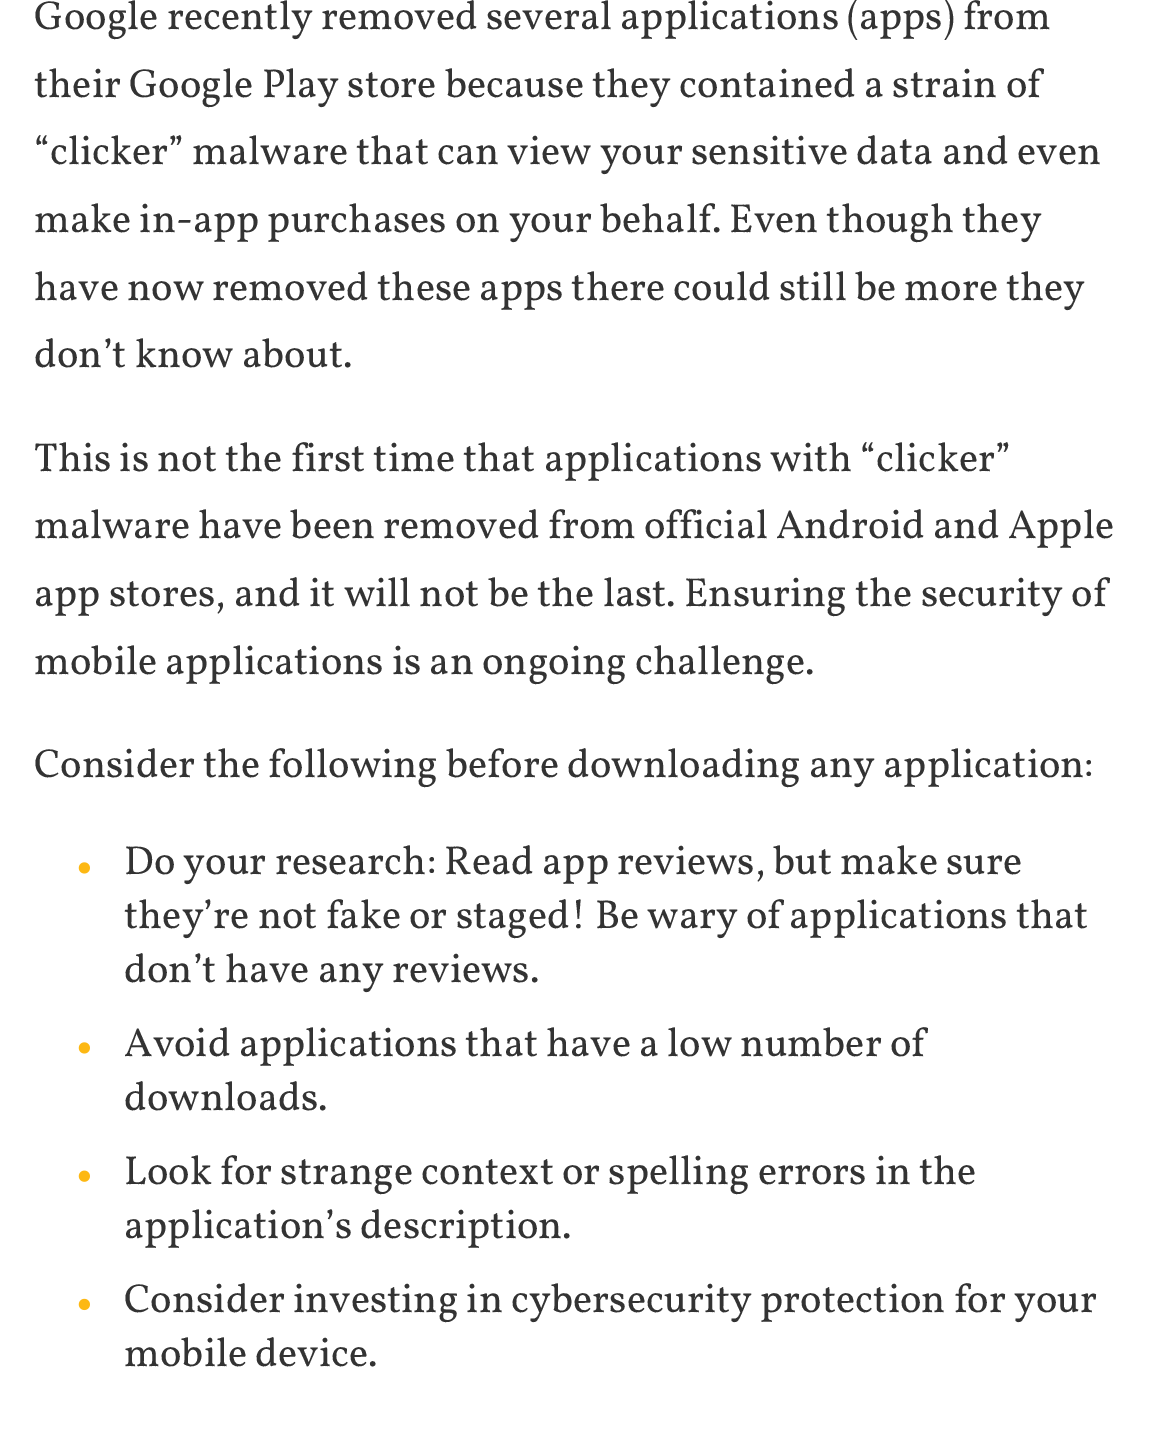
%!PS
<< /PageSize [1155 1435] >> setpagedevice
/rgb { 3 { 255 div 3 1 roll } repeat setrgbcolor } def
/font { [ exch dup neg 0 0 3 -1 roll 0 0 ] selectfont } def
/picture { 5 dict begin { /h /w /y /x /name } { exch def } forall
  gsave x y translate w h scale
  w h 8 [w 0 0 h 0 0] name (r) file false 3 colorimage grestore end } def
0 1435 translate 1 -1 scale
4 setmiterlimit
255 255 255 rgb
0 0 1155 1435 rectfill
(img/1.rgb) 78 862 12 12 picture
(img/1.rgb) 78 1042 12 12 picture
(img/2.rgb) 78 1170 12 12 picture
(img/3.rgb) 78 1298 12 13 picture
/Vollkorn-Regular 40.5 font
51 51 51 rgb
[
  [(Google recently removed several applications \(apps\) from) 34 29]
  [(their Google Play store because they contained a strain of) 34 97]
  [(“clicker” malware that can view your sensitive data and even) 34 164]
  [(make in-app purchases on your behalf. Even though they) 34 232]
  [(have now removed these apps there could still be more they) 34 300]
  [(don’t know about.) 34 367]
  [(This is not the first time that applications with “clicker”) 34 471]
] { aload pop moveto show } forall
34 538 moveto -0.25 0 32 (malware have been removed from official Android and Apple) widthshow
[
  [(app stores, and it will not be the last. Ensuring the security of) 34 606]
  [(mobile applications is an ongoing challenge.) 34 674]
  [(Consider the following before downloading any application:) 34 777]
  [(Do your research: Read app reviews, but make sure) 124 874]
  [(they’re not fake or staged! Be wary of applications that) 124 928]
  [(don’t have any reviews.) 124 982]
  [(Avoid applications that have a low number of) 124 1056]
  [(downloads.) 124 1110]
  [(Look for strange context or spelling errors in the) 124 1184]
  [(application’s description.) 124 1238]
  [(Consider investing in cybersecurity protection for your) 124 1312]
  [(mobile device.) 124 1366]
] { aload pop moveto show } forall
showpage
